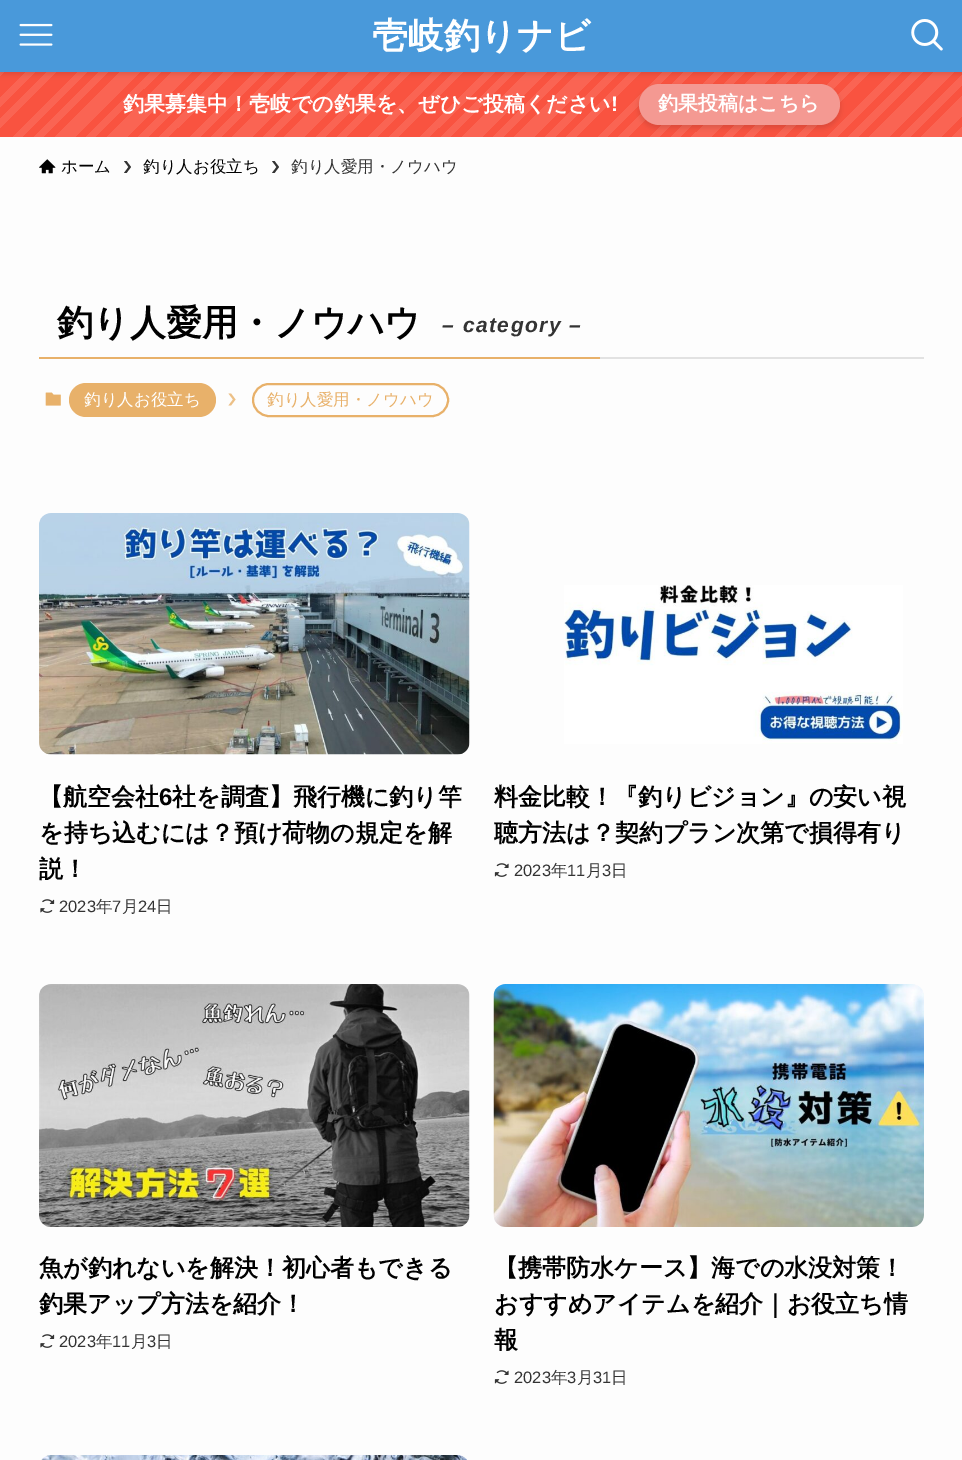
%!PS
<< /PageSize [962 1460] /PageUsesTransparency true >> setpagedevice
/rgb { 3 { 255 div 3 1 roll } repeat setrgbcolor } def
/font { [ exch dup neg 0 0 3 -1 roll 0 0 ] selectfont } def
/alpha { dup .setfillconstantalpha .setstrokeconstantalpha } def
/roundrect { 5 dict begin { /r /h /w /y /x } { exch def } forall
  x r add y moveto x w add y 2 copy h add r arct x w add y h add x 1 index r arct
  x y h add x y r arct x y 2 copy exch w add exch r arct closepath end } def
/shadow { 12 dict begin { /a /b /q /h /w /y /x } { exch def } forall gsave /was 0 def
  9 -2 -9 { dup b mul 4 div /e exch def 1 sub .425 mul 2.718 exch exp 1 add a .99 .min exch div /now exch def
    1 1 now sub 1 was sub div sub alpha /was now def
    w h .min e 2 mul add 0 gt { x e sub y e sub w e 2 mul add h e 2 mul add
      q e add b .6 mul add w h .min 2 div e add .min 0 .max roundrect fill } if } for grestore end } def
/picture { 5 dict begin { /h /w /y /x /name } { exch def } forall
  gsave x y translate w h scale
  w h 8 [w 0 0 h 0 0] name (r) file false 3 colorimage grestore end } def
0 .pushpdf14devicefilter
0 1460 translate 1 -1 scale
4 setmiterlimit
253 253 253 rgb
0 0 962 1460 rectfill
gsave 0 72 moveto 962 72 lineto 962 137 lineto 0 137 lineto closepath clip newpath
<< /ShadingType 2 /ColorSpace /DeviceRGB /Coords [738 361 217 -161] /Extend [true true] /Function << /FunctionType 3 /Domain [0 1] /Functions [<< /FunctionType 2 /Domain [0 1] /C0 [0.98 0.392 0.325] /C1 [0.98 0.392 0.325] /N 1 >> << /FunctionType 2 /Domain [0 1] /C0 [0.976 0.325 0.251] /C1 [0.976 0.325 0.251] /N 1 >> << /FunctionType 2 /Domain [0 1] /C0 [0.98 0.392 0.325] /C1 [0.98 0.392 0.325] /N 1 >> << /FunctionType 2 /Domain [0 1] /C0 [0.976 0.325 0.251] /C1 [0.976 0.325 0.251] /N 1 >> << /FunctionType 2 /Domain [0 1] /C0 [0.98 0.392 0.325] /C1 [0.98 0.392 0.325] /N 1 >> << /FunctionType 2 /Domain [0 1] /C0 [0.976 0.325 0.251] /C1 [0.976 0.325 0.251] /N 1 >> << /FunctionType 2 /Domain [0 1] /C0 [0.98 0.392 0.325] /C1 [0.98 0.392 0.325] /N 1 >> << /FunctionType 2 /Domain [0 1] /C0 [0.976 0.325 0.251] /C1 [0.976 0.325 0.251] /N 1 >> << /FunctionType 2 /Domain [0 1] /C0 [0.98 0.392 0.325] /C1 [0.98 0.392 0.325] /N 1 >> << /FunctionType 2 /Domain [0 1] /C0 [0.976 0.325 0.251] /C1 [0.976 0.325 0.251] /N 1 >> << /FunctionType 2 /Domain [0 1] /C0 [0.98 0.392 0.325] /C1 [0.98 0.392 0.325] /N 1 >> << /FunctionType 2 /Domain [0 1] /C0 [0.976 0.325 0.251] /C1 [0.976 0.325 0.251] /N 1 >> << /FunctionType 2 /Domain [0 1] /C0 [0.98 0.392 0.325] /C1 [0.98 0.392 0.325] /N 1 >> << /FunctionType 2 /Domain [0 1] /C0 [0.976 0.325 0.251] /C1 [0.976 0.325 0.251] /N 1 >> << /FunctionType 2 /Domain [0 1] /C0 [0.98 0.392 0.325] /C1 [0.98 0.392 0.325] /N 1 >> << /FunctionType 2 /Domain [0 1] /C0 [0.976 0.325 0.251] /C1 [0.976 0.325 0.251] /N 1 >> << /FunctionType 2 /Domain [0 1] /C0 [0.98 0.392 0.325] /C1 [0.98 0.392 0.325] /N 1 >> << /FunctionType 2 /Domain [0 1] /C0 [0.976 0.325 0.251] /C1 [0.976 0.325 0.251] /N 1 >> << /FunctionType 2 /Domain [0 1] /C0 [0.98 0.392 0.325] /C1 [0.98 0.392 0.325] /N 1 >> << /FunctionType 2 /Domain [0 1] /C0 [0.976 0.325 0.251] /C1 [0.976 0.325 0.251] /N 1 >> << /FunctionType 2 /Domain [0 1] /C0 [0.98 0.392 0.325] /C1 [0.98 0.392 0.325] /N 1 >> << /FunctionType 2 /Domain [0 1] /C0 [0.976 0.325 0.251] /C1 [0.976 0.325 0.251] /N 1 >> << /FunctionType 2 /Domain [0 1] /C0 [0.98 0.392 0.325] /C1 [0.98 0.392 0.325] /N 1 >> << /FunctionType 2 /Domain [0 1] /C0 [0.976 0.325 0.251] /C1 [0.976 0.325 0.251] /N 1 >> << /FunctionType 2 /Domain [0 1] /C0 [0.98 0.392 0.325] /C1 [0.98 0.392 0.325] /N 1 >> << /FunctionType 2 /Domain [0 1] /C0 [0.976 0.325 0.251] /C1 [0.976 0.325 0.251] /N 1 >> << /FunctionType 2 /Domain [0 1] /C0 [0.98 0.392 0.325] /C1 [0.98 0.392 0.325] /N 1 >> << /FunctionType 2 /Domain [0 1] /C0 [0.976 0.325 0.251] /C1 [0.976 0.325 0.251] /N 1 >> << /FunctionType 2 /Domain [0 1] /C0 [0.98 0.392 0.325] /C1 [0.98 0.392 0.325] /N 1 >> << /FunctionType 2 /Domain [0 1] /C0 [0.976 0.325 0.251] /C1 [0.976 0.325 0.251] /N 1 >> << /FunctionType 2 /Domain [0 1] /C0 [0.98 0.392 0.325] /C1 [0.98 0.392 0.325] /N 1 >> << /FunctionType 2 /Domain [0 1] /C0 [0.976 0.325 0.251] /C1 [0.976 0.325 0.251] /N 1 >> << /FunctionType 2 /Domain [0 1] /C0 [0.98 0.392 0.325] /C1 [0.98 0.392 0.325] /N 1 >> << /FunctionType 2 /Domain [0 1] /C0 [0.976 0.325 0.251] /C1 [0.976 0.325 0.251] /N 1 >> << /FunctionType 2 /Domain [0 1] /C0 [0.98 0.392 0.325] /C1 [0.98 0.392 0.325] /N 1 >> << /FunctionType 2 /Domain [0 1] /C0 [0.976 0.325 0.251] /C1 [0.976 0.325 0.251] /N 1 >> << /FunctionType 2 /Domain [0 1] /C0 [0.98 0.392 0.325] /C1 [0.98 0.392 0.325] /N 1 >> << /FunctionType 2 /Domain [0 1] /C0 [0.976 0.325 0.251] /C1 [0.976 0.325 0.251] /N 1 >> << /FunctionType 2 /Domain [0 1] /C0 [0.98 0.392 0.325] /C1 [0.98 0.392 0.325] /N 1 >> << /FunctionType 2 /Domain [0 1] /C0 [0.976 0.325 0.251] /C1 [0.976 0.325 0.251] /N 1 >> << /FunctionType 2 /Domain [0 1] /C0 [0.98 0.392 0.325] /C1 [0.98 0.392 0.325] /N 1 >> << /FunctionType 2 /Domain [0 1] /C0 [0.976 0.325 0.251] /C1 [0.976 0.325 0.251] /N 1 >> << /FunctionType 2 /Domain [0 1] /C0 [0.98 0.392 0.325] /C1 [0.98 0.392 0.325] /N 1 >> << /FunctionType 2 /Domain [0 1] /C0 [0.976 0.325 0.251] /C1 [0.976 0.325 0.251] /N 1 >> << /FunctionType 2 /Domain [0 1] /C0 [0.98 0.392 0.325] /C1 [0.98 0.392 0.325] /N 1 >> << /FunctionType 2 /Domain [0 1] /C0 [0.976 0.325 0.251] /C1 [0.976 0.325 0.251] /N 1 >> << /FunctionType 2 /Domain [0 1] /C0 [0.98 0.392 0.325] /C1 [0.98 0.392 0.325] /N 1 >> << /FunctionType 2 /Domain [0 1] /C0 [0.976 0.325 0.251] /C1 [0.976 0.325 0.251] /N 1 >> << /FunctionType 2 /Domain [0 1] /C0 [0.98 0.392 0.325] /C1 [0.98 0.392 0.325] /N 1 >> << /FunctionType 2 /Domain [0 1] /C0 [0.976 0.325 0.251] /C1 [0.976 0.325 0.251] /N 1 >> << /FunctionType 2 /Domain [0 1] /C0 [0.98 0.392 0.325] /C1 [0.98 0.392 0.325] /N 1 >> << /FunctionType 2 /Domain [0 1] /C0 [0.976 0.325 0.251] /C1 [0.976 0.325 0.251] /N 1 >> << /FunctionType 2 /Domain [0 1] /C0 [0.98 0.392 0.325] /C1 [0.98 0.392 0.325] /N 1 >> << /FunctionType 2 /Domain [0 1] /C0 [0.976 0.325 0.251] /C1 [0.976 0.325 0.251] /N 1 >> << /FunctionType 2 /Domain [0 1] /C0 [0.98 0.392 0.325] /C1 [0.98 0.392 0.325] /N 1 >> << /FunctionType 2 /Domain [0 1] /C0 [0.976 0.325 0.251] /C1 [0.976 0.325 0.251] /N 1 >> << /FunctionType 2 /Domain [0 1] /C0 [0.98 0.392 0.325] /C1 [0.98 0.392 0.325] /N 1 >> << /FunctionType 2 /Domain [0 1] /C0 [0.976 0.325 0.251] /C1 [0.976 0.325 0.251] /N 1 >> << /FunctionType 2 /Domain [0 1] /C0 [0.98 0.392 0.325] /C1 [0.98 0.392 0.325] /N 1 >> << /FunctionType 2 /Domain [0 1] /C0 [0.976 0.325 0.251] /C1 [0.976 0.325 0.251] /N 1 >> << /FunctionType 2 /Domain [0 1] /C0 [0.98 0.392 0.325] /C1 [0.98 0.392 0.325] /N 1 >> << /FunctionType 2 /Domain [0 1] /C0 [0.976 0.325 0.251] /C1 [0.976 0.325 0.251] /N 1 >> << /FunctionType 2 /Domain [0 1] /C0 [0.98 0.392 0.325] /C1 [0.98 0.392 0.325] /N 1 >> << /FunctionType 2 /Domain [0 1] /C0 [0.976 0.325 0.251] /C1 [0.976 0.325 0.251] /N 1 >> << /FunctionType 2 /Domain [0 1] /C0 [0.98 0.392 0.325] /C1 [0.98 0.392 0.325] /N 1 >> << /FunctionType 2 /Domain [0 1] /C0 [0.976 0.325 0.251] /C1 [0.976 0.325 0.251] /N 1 >> << /FunctionType 2 /Domain [0 1] /C0 [0.98 0.392 0.325] /C1 [0.98 0.392 0.325] /N 1 >> << /FunctionType 2 /Domain [0 1] /C0 [0.976 0.325 0.251] /C1 [0.976 0.325 0.251] /N 1 >> << /FunctionType 2 /Domain [0 1] /C0 [0.98 0.392 0.325] /C1 [0.98 0.392 0.325] /N 1 >> << /FunctionType 2 /Domain [0 1] /C0 [0.976 0.325 0.251] /C1 [0.976 0.325 0.251] /N 1 >> << /FunctionType 2 /Domain [0 1] /C0 [0.98 0.392 0.325] /C1 [0.98 0.392 0.325] /N 1 >> << /FunctionType 2 /Domain [0 1] /C0 [0.976 0.325 0.251] /C1 [0.976 0.325 0.251] /N 1 >> << /FunctionType 2 /Domain [0 1] /C0 [0.98 0.392 0.325] /C1 [0.98 0.392 0.325] /N 1 >> << /FunctionType 2 /Domain [0 1] /C0 [0.976 0.325 0.251] /C1 [0.976 0.325 0.251] /N 1 >> << /FunctionType 2 /Domain [0 1] /C0 [0.98 0.392 0.325] /C1 [0.98 0.392 0.325] /N 1 >> << /FunctionType 2 /Domain [0 1] /C0 [0.976 0.325 0.251] /C1 [0.976 0.325 0.251] /N 1 >> << /FunctionType 2 /Domain [0 1] /C0 [0.98 0.392 0.325] /C1 [0.98 0.392 0.325] /N 1 >> << /FunctionType 2 /Domain [0 1] /C0 [0.976 0.325 0.251] /C1 [0.976 0.325 0.251] /N 1 >> << /FunctionType 2 /Domain [0 1] /C0 [0.98 0.392 0.325] /C1 [0.98 0.392 0.325] /N 1 >> << /FunctionType 2 /Domain [0 1] /C0 [0.976 0.325 0.251] /C1 [0.976 0.325 0.251] /N 1 >> << /FunctionType 2 /Domain [0 1] /C0 [0.98 0.392 0.325] /C1 [0.98 0.392 0.325] /N 1 >> << /FunctionType 2 /Domain [0 1] /C0 [0.976 0.325 0.251] /C1 [0.976 0.325 0.251] /N 1 >>] /Bounds [0.01 0.02 0.04 0.05 0.06 0.07 0.09 0.1 0.11 0.12 0.13 0.15 0.16 0.17 0.18 0.2 0.21 0.22 0.23 0.24 0.26 0.27 0.28 0.29 0.3 0.32 0.33 0.34 0.35 0.37 0.38 0.39 0.4 0.41 0.43 0.44 0.45 0.46 0.48 0.49 0.5 0.51 0.52 0.54 0.55 0.56 0.57 0.59 0.6 0.61 0.62 0.63 0.65 0.66 0.67 0.68 0.7 0.71 0.72 0.73 0.74 0.76 0.77 0.78 0.79 0.8 0.82 0.83 0.84 0.85 0.87 0.88 0.89 0.9 0.91 0.93 0.94 0.95 0.96 0.98 0.99] /Encode [0 1 0 1 0 1 0 1 0 1 0 1 0 1 0 1 0 1 0 1 0 1 0 1 0 1 0 1 0 1 0 1 0 1 0 1 0 1 0 1 0 1 0 1 0 1 0 1 0 1 0 1 0 1 0 1 0 1 0 1 0 1 0 1 0 1 0 1 0 1 0 1 0 1 0 1 0 1 0 1 0 1 0 1 0 1 0 1 0 1 0 1 0 1 0 1 0 1 0 1 0 1 0 1 0 1 0 1 0 1 0 1 0 1 0 1 0 1 0 1 0 1 0 1 0 1 0 1 0 1 0 1 0 1 0 1 0 1 0 1 0 1 0 1 0 1 0 1 0 1 0 1 0 1 0 1 0 1 0 1 0 1 0 1] >> >> shfill grestore
0 0 0 rgb
0 2 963 72 0 3 0.12 shadow
73 153 218 rgb
0 0 962 72 rectfill
(img/1.rgb) 19 23 34 23 picture
(img/2.rgb) 911 19 32 32 picture
0 0 0 rgb
639 87 201 41 20.5 3 0.12 shadow
244 153 146 rgb
639 84 201 41 20.5 roundrect fill
(img/3.rgb) 39 159 17 15 picture
51 51 51 rgb
126.5 161 moveto 124 161 lineto 128.5 167 lineto 124 173 lineto 126.5 173 lineto 131 167 lineto closepath fill
274.5 161 moveto 272 161 lineto 276.5 167 lineto 272 173 lineto 274.5 173 lineto 279 167 lineto closepath fill
226 226 226 rgb
600 357 324 2 rectfill
232 177 106 rgb
39 357 561 2 rectfill
(img/4.rgb) 45 392 16 14 picture
69 383 147 34 17 roundrect fill
236 192 135 rgb
231 393.5 moveto 228.5 393.5 lineto 233 399.5 lineto 228.5 405.5 lineto 231 405.5 lineto 235.5 399.5 lineto closepath fill
232 177 106 rgb
2 setlinewidth
253 384 195 32 16 roundrect stroke
(img/5.rgb) 39 513 431 242 picture
(img/6.rgb) 40 899 15 14 picture
(img/7.rgb) 564 585 339 159 picture
(img/8.rgb) 494 863 15 14 picture
(img/9.rgb) 39 984 431 243 picture
(img/6.rgb) 40 1334 15 14 picture
(img/10.rgb) 493 984 431 243 picture
(img/8.rgb) 494 1370 15 14 picture
(img/11.rgb) 41 1455 426 5 picture
/WenQuanYiZenHei-Bold 36 font
255 255 255 rgb
372 48 moveto (壱岐釣りナビ) show
/WenQuanYiZenHei-Bold 21 font
123 111 moveto (釣果募集中！壱岐での釣果を、ぜひご投稿ください) show
/LiberationSans-Bold 21 font
611 111 moveto (!) show
/WenQuanYiZenHei-Bold 20 font
658 110 moveto (釣果投稿はこちら) show
/WenQuanYiZenHei-Medium 16.5 font
0 0 0 rgb
61 172 moveto (ホーム) show
143 172 moveto (釣り人お役立ち) show
51 51 51 rgb
291 172 moveto (釣り人愛用・ノウハウ) show
/WenQuanYiZenHei-Bold 36 font
0 0 0 rgb
57 335 moveto (釣り人愛用・ノウハウ) show
/LiberationSans-BoldItalic 21 font
51 51 51 rgb
442 332 moveto 1.5 0 (– category –) ashow
/WenQuanYiZenHei-Medium 16.5 font
255 255 255 rgb
84 405 moveto (釣り人お役立ち) show
232 177 106 rgb
267 405 moveto (釣り人愛用・ノウハウ) show
/WenQuanYiZenHei-Bold 24 font
0 0 0 rgb
39 805 moveto (【航空会社) show
/LiberationSans-Bold 24 font
159 805 moveto (6) show
/WenQuanYiZenHei-Bold 24 font
[
  [(社を調査】飛行機に釣り竿) 172 805]
  [(を持ち込むには？預け荷物の規定を解) 39 841]
  [(説！) 39 877]
] { aload pop moveto show } forall
/LiberationSans-Regular 16.5 font
51 51 51 rgb
59 912 moveto (2023) show
/WenQuanYiZenHei-Medium 16.5 font
96 912 moveto (年) show
/LiberationSans-Regular 16.5 font
112 912 moveto (7) show
/WenQuanYiZenHei-Medium 16.5 font
122 912 moveto (月) show
/LiberationSans-Regular 16.5 font
138 912 moveto (24) show
/WenQuanYiZenHei-Medium 16.5 font
156 912 moveto (日) show
/WenQuanYiZenHei-Bold 24 font
0 0 0 rgb
494 805 moveto (料金比較！『釣りビジョン』の安い視) show
494 841 moveto (聴方法は？契約プラン次第で損得有り) show
/LiberationSans-Regular 16.5 font
51 51 51 rgb
514 876 moveto (2023) show
/WenQuanYiZenHei-Medium 16.5 font
551 876 moveto (年) show
/LiberationSans-Regular 16.5 font
567 876 moveto (11) show
/WenQuanYiZenHei-Medium 16.5 font
586 876 moveto (月) show
/LiberationSans-Regular 16.5 font
602 876 moveto (3) show
/WenQuanYiZenHei-Medium 16.5 font
611 876 moveto (日) show
/WenQuanYiZenHei-Bold 24 font
0 0 0 rgb
39 1276 moveto (魚が釣れないを解決！初心者もできる) show
39 1312 moveto (釣果アップ方法を紹介！) show
/LiberationSans-Regular 16.5 font
51 51 51 rgb
59 1347 moveto (2023) show
/WenQuanYiZenHei-Medium 16.5 font
96 1347 moveto (年) show
/LiberationSans-Regular 16.5 font
112 1347 moveto (11) show
/WenQuanYiZenHei-Medium 16.5 font
131 1347 moveto (月) show
/LiberationSans-Regular 16.5 font
147 1347 moveto (3) show
/WenQuanYiZenHei-Medium 16.5 font
156 1347 moveto (日) show
/WenQuanYiZenHei-Bold 24 font
0 0 0 rgb
[
  [(【携帯防水ケース】海での水没対策！) 494 1276]
  [(おすすめアイテムを紹介｜お役立ち情) 494 1312]
  [(報) 494 1348]
] { aload pop moveto show } forall
/LiberationSans-Regular 16.5 font
51 51 51 rgb
514 1383 moveto (2023) show
/WenQuanYiZenHei-Medium 16.5 font
551 1383 moveto (年) show
/LiberationSans-Regular 16.5 font
567 1383 moveto (3) show
/WenQuanYiZenHei-Medium 16.5 font
577 1383 moveto (月) show
/LiberationSans-Regular 16.5 font
593 1383 moveto (31) show
/WenQuanYiZenHei-Medium 16.5 font
611 1383 moveto (日) show
.poppdf14devicefilter showpage
